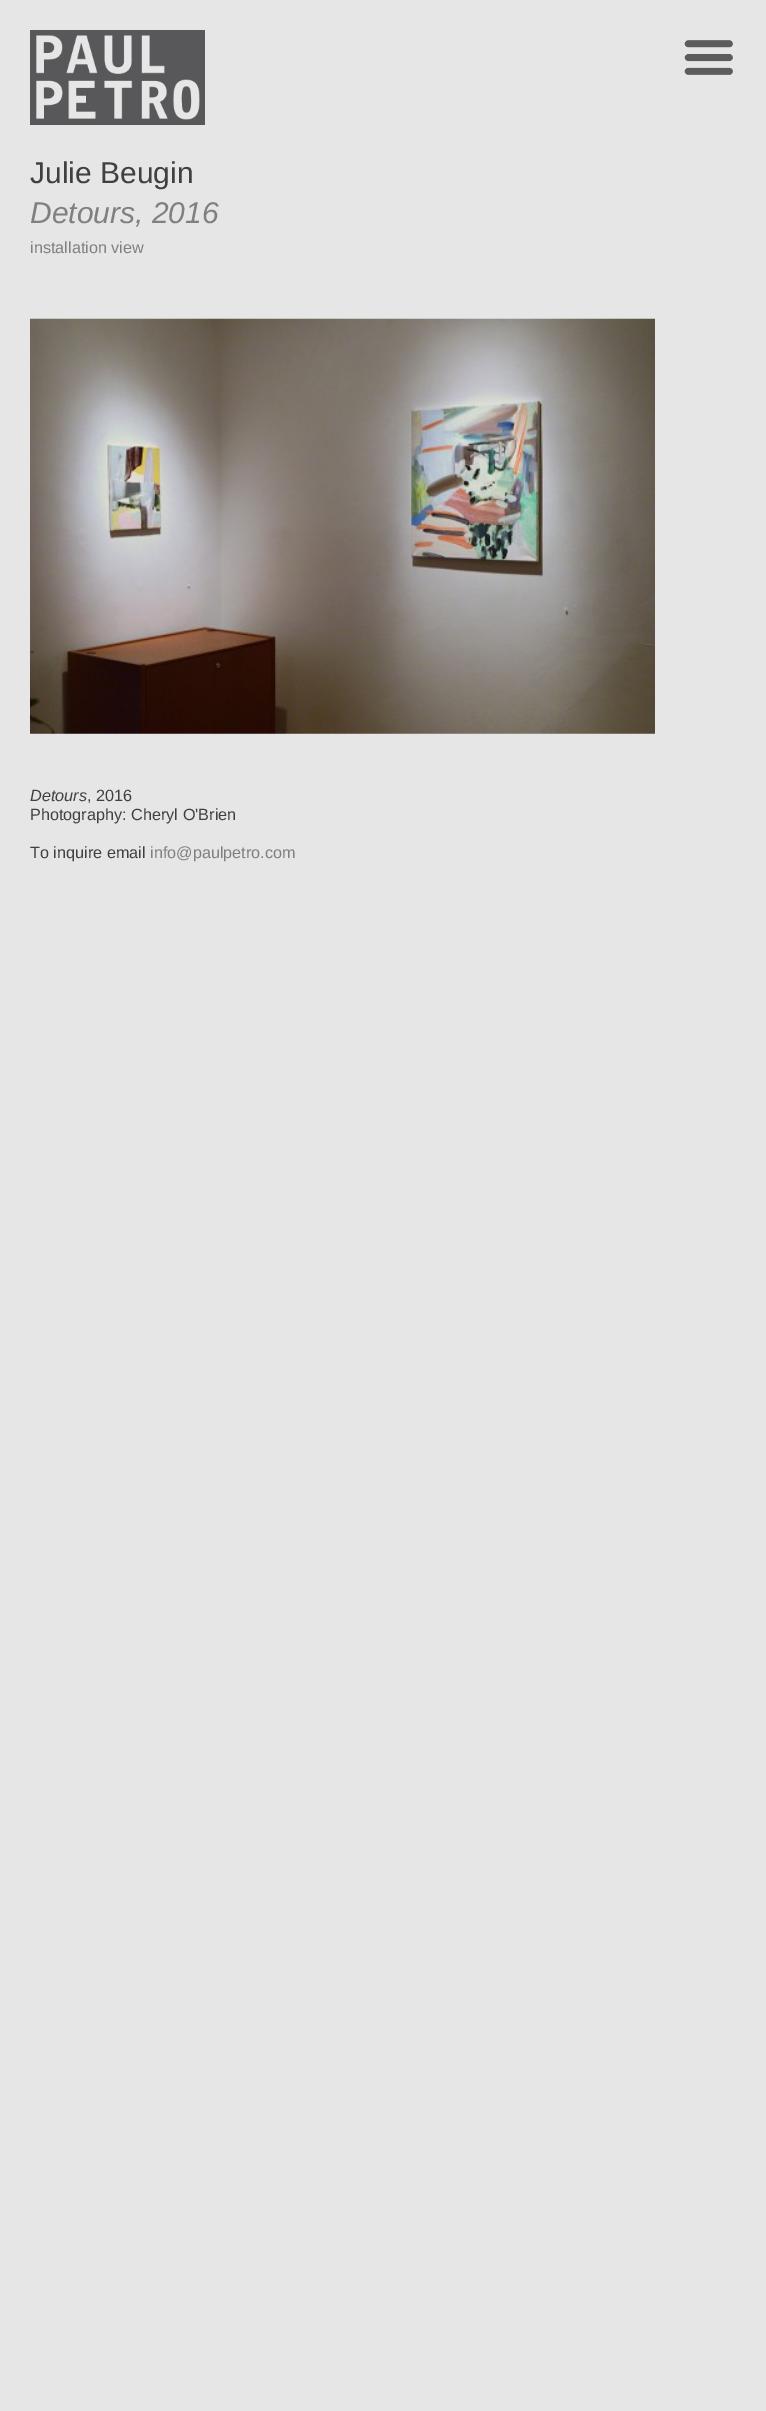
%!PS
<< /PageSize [766 2411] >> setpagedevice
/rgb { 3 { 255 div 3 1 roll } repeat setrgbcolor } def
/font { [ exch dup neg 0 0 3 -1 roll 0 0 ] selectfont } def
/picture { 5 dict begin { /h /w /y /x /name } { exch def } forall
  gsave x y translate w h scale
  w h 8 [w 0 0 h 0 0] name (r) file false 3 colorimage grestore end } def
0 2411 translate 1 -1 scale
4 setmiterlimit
230 230 230 rgb
0 0 766 2411 rectfill
(img/1.rgb) 684 40 49 35 picture
(img/2.rgb) 30 30 175 95 picture
(img/3.rgb) 30 318 625 416 picture
/LiberationSans-Regular 30 font
64 64 64 rgb
30 183 moveto (Julie Beugin) show
/LiberationSans-Italic 30 font
128 128 128 rgb
30 223 moveto (Detours, 2016) show
/LiberationSans-Regular 16.25 font
30 253 moveto (installation view) show
/LiberationSans-Italic 16.25 font
64 64 64 rgb
30 801 moveto (Detours) show
/LiberationSans-Regular 16.25 font
[
  [(, 2016) 87 801]
  [(Photography: Cheryl O'Brien) 30 820]
  [(To inquire email) 30 858]
] { aload pop moveto show } forall
128 128 128 rgb
150 858 moveto (info@paulpetro.com) show
showpage
